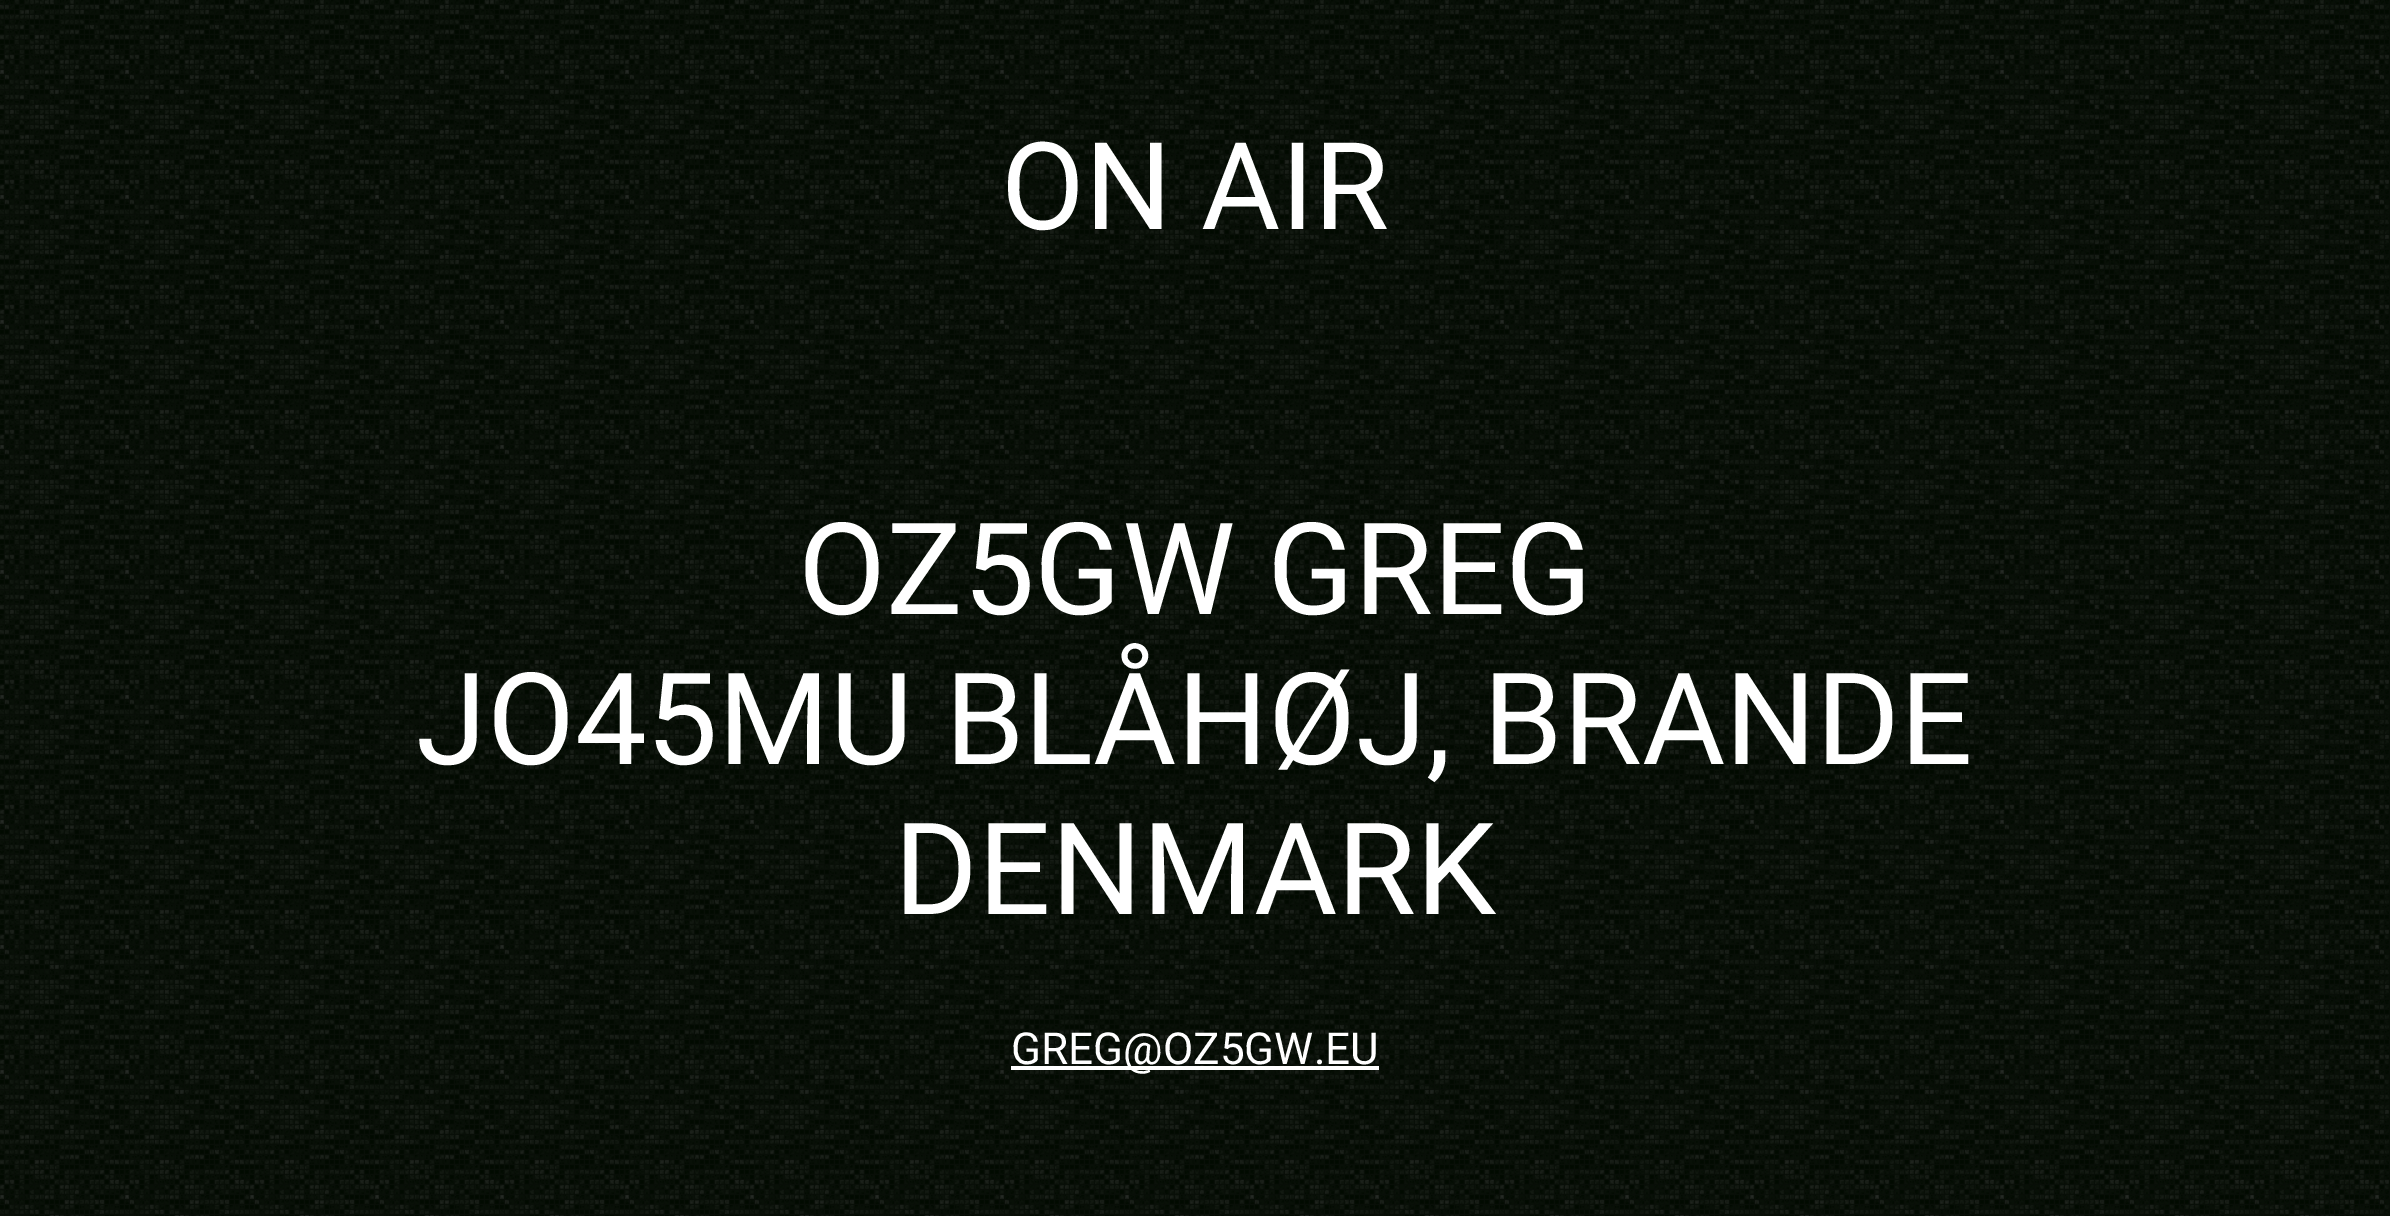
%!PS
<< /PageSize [2390 1216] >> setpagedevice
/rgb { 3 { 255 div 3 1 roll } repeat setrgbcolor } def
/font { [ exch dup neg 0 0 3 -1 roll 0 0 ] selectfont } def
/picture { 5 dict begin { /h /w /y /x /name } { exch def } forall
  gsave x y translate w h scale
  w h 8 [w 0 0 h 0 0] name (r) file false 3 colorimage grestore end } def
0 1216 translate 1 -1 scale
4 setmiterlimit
1 10 0 rgb
0 0 2390 1216 rectfill
(img/1.rgb) 0 0 2390 1216 picture
255 255 255 rgb
1011 1066 368 4 rectfill
/Roboto-Regular 121.5 font
1001 229 moveto (ON AIR) show
/Roboto-Regular 127.9 font
[
  [(OZ5GW GREG) 798 614]
  [(JO45MU BLÅHØJ, BRANDE) 416 764]
  [(DENMARK) 894 914]
] { aload pop moveto show } forall
/Roboto-Regular 44.1 font
1011 1064 moveto (GREG@OZ5GW.EU) show
showpage
